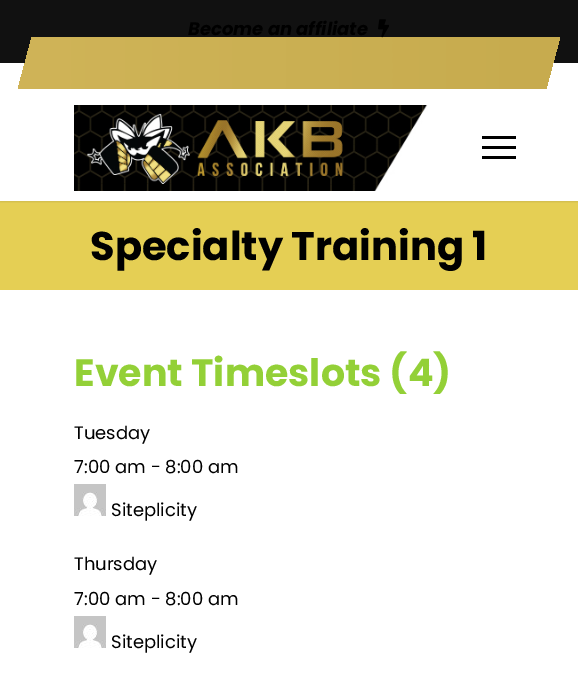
%!PS
<< /PageSize [578 695] /PageUsesTransparency true >> setpagedevice
/rgb { 3 { 255 div 3 1 roll } repeat setrgbcolor } def
/font { [ exch dup neg 0 0 3 -1 roll 0 0 ] selectfont } def
/alpha { dup .setfillconstantalpha .setstrokeconstantalpha } def
/roundrect { 5 dict begin { /r /h /w /y /x } { exch def } forall
  x r add y moveto x w add y 2 copy h add r arct x w add y h add x 1 index r arct
  x y h add x y r arct x y 2 copy exch w add exch r arct closepath end } def
/shadow { 12 dict begin { /a /b /q /h /w /y /x } { exch def } forall gsave /was 0 def
  9 -2 -9 { dup b mul 4 div /e exch def 1 sub .425 mul 2.718 exch exp 1 add a .99 .min exch div /now exch def
    1 1 now sub 1 was sub div sub alpha /was now def
    w h .min e 2 mul add 0 gt { x e sub y e sub w e 2 mul add h e 2 mul add
      q e add b .6 mul add w h .min 2 div e add .min 0 .max roundrect fill } if } for grestore end } def
/picture { 5 dict begin { /h /w /y /x /name } { exch def } forall
  gsave x y translate w h scale
  w h 8 [w 0 0 h 0 0] name (r) file false 3 colorimage grestore end } def
0 .pushpdf14devicefilter
0 695 translate 1 -1 scale
4 setmiterlimit
255 255 255 rgb
0 0 578 695 rectfill
229 207 84 rgb
0 201 578 89 rectfill
gsave
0 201 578 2 rectclip
0 0 0 rgb
0 1 578 201 0 1 0.1 shadow
grestore
(img/1.rgb) 74 105 354 86 picture
[
  [482 136 34 3 0 0 0]
  [482 146 34 3 0 0 0]
  [482 156 34 3 0 0 0]
  [0 0 578 63 17 17 17]
] { aload pop rgb rectfill } forall
gsave 32 37 moveto 560 37 lineto 546 89 lineto 18 89 lineto closepath clip newpath
<< /ShadingType 2 /ColorSpace /DeviceRGB /Coords [-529 63 553 63] /Extend [true true] /Function << /FunctionType 3 /Domain [0 1] /Functions [<< /FunctionType 2 /Domain [0 1] /C0 [0.898 0.812 0.329] /C1 [0.922 0.843 0.424] /N 1 >> << /FunctionType 2 /Domain [0 1] /C0 [0.816 0.706 0.345] /C1 [0.78 0.671 0.306] /N 1 >>] /Bounds [0.5] /Encode [0 1 0 1] >> >> shfill grestore
(img/2.rgb) 378 19 11 19 picture
(img/3.rgb) 74 484 32 32 picture
(img/3.rgb) 74 616 32 32 picture
/Poppins-BoldItalic 18 font
0 0 0 rgb
188 35 moveto (Become an affiliate) show
/Poppins-Bold 40 font
90 260 moveto (Specialty Training 1) show
/Poppins-Bold 38 font
147 208 55 rgb
74 386 moveto (Event Timeslots \(4\)) show
/Poppins-Regular 18 font
0 0 0 rgb
[
  [(Tuesday) 74 439]
  [(7:00 am - 8:00 am) 74 473]
  [(Siteplicity) 111 516]
  [(Thursday) 74 570]
  [(7:00 am - 8:00 am) 74 605]
  [(Siteplicity) 111 648]
] { aload pop moveto show } forall
.poppdf14devicefilter showpage
